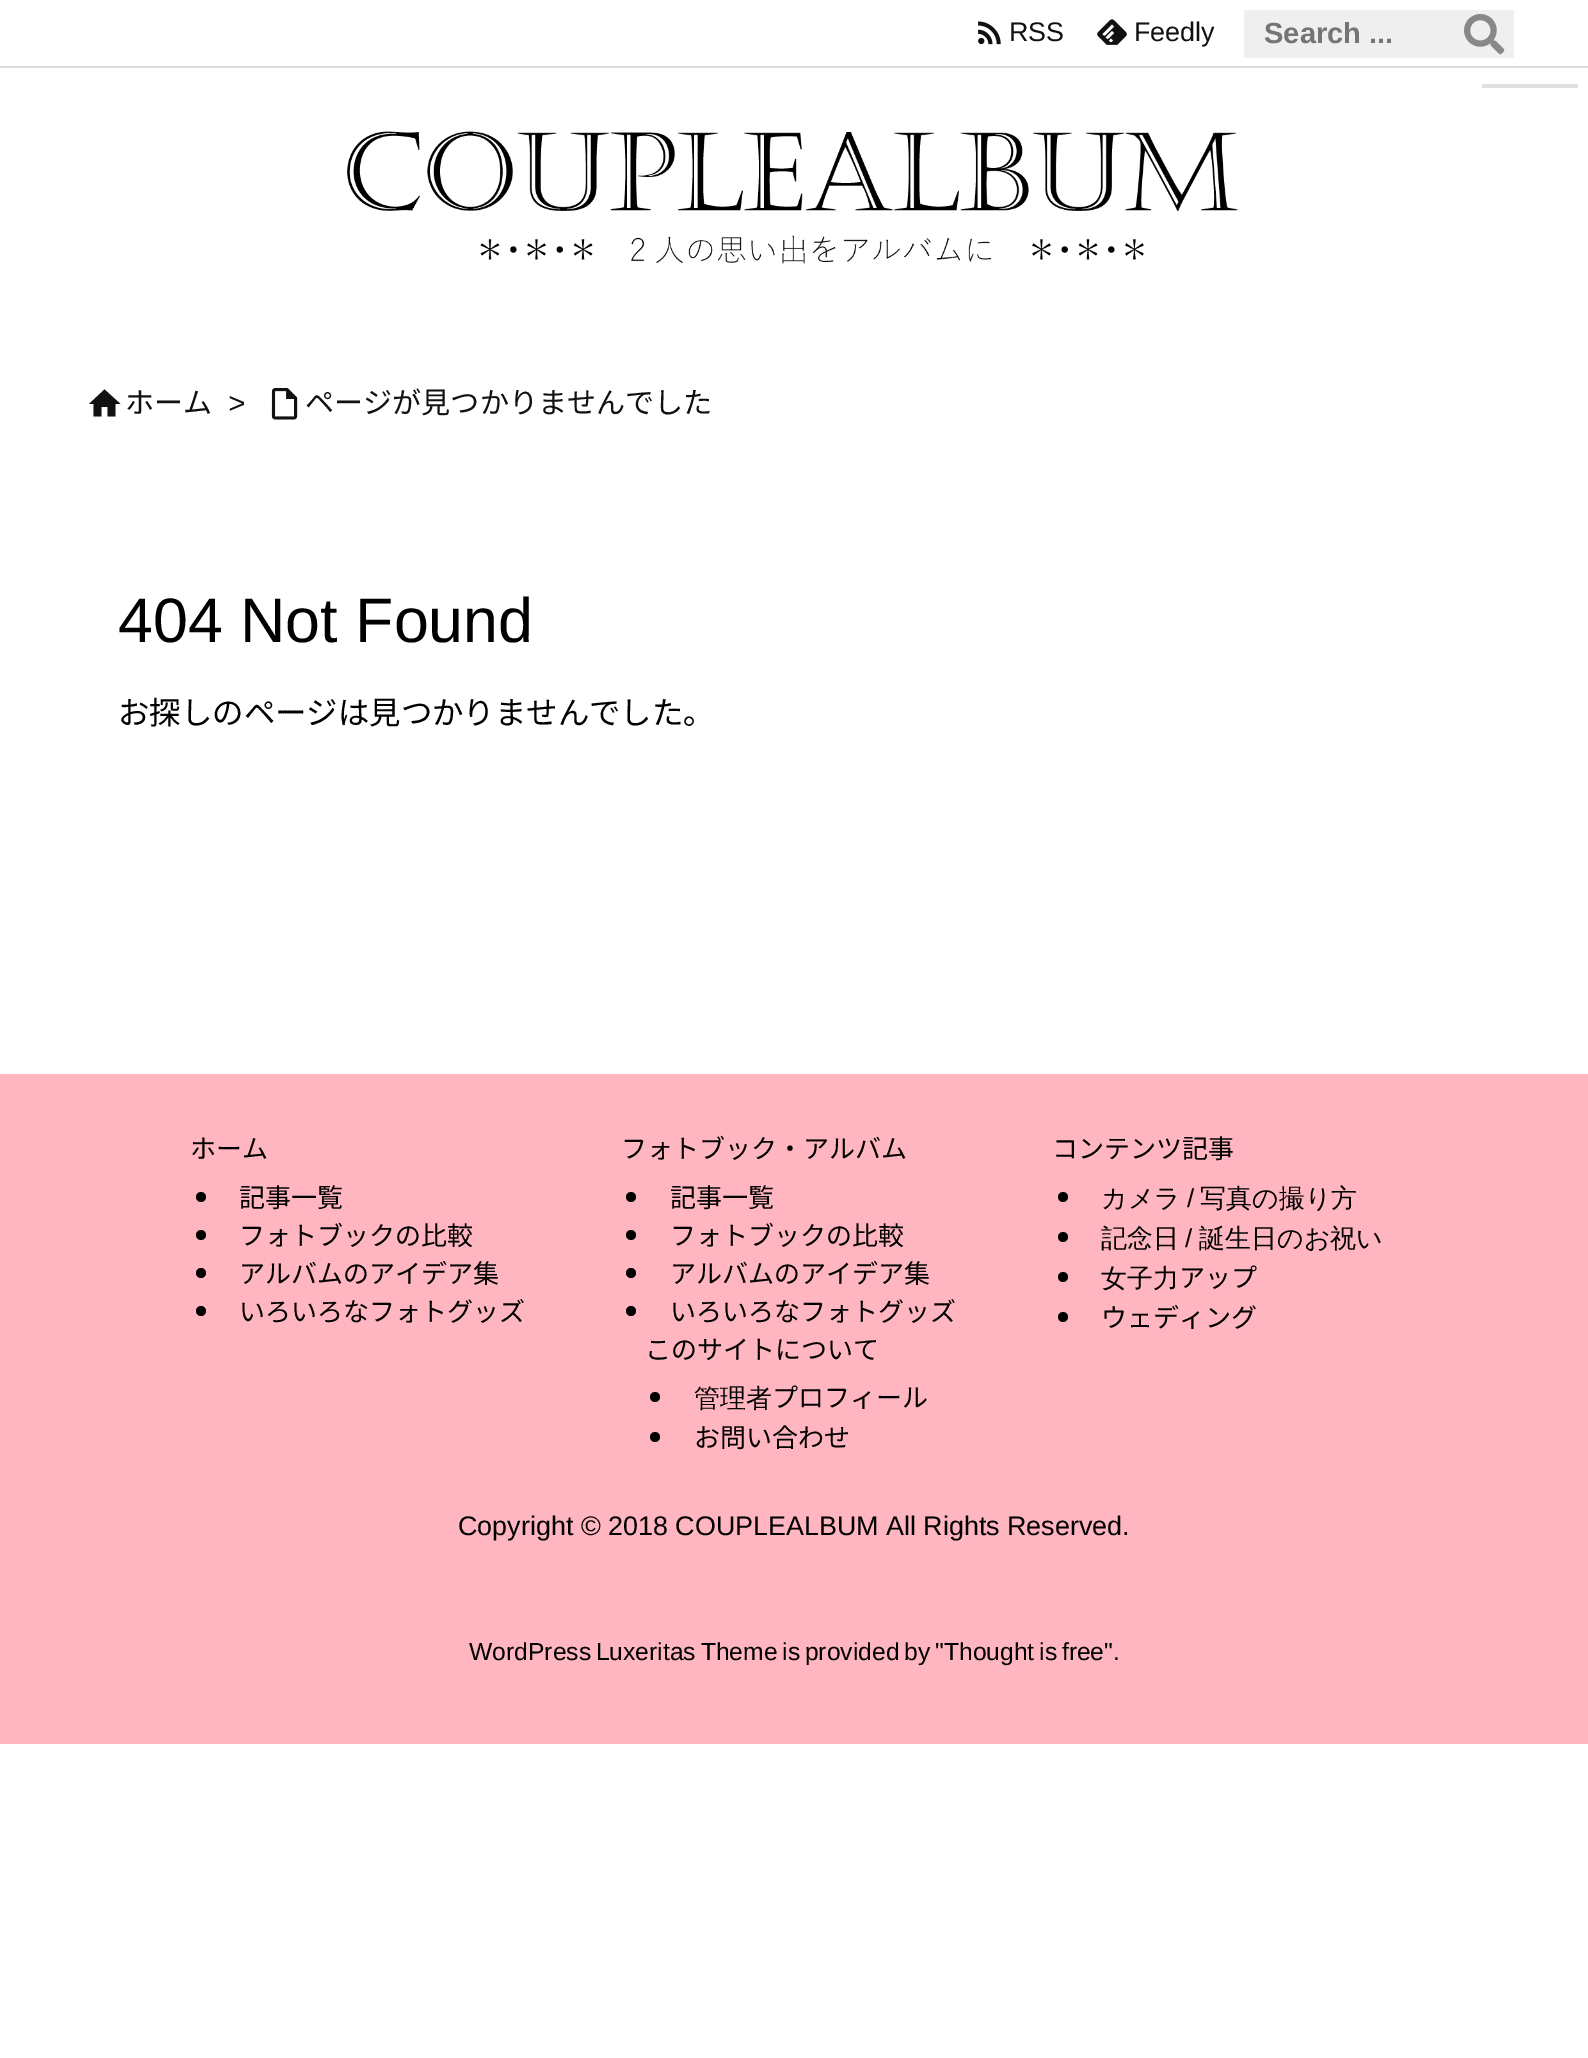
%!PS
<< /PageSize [1588 2058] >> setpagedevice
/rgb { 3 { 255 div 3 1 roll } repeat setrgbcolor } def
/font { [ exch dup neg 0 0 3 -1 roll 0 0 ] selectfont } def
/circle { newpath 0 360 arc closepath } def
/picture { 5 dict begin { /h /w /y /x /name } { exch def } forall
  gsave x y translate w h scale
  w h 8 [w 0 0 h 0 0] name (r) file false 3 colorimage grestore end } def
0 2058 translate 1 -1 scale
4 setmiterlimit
255 255 255 rgb
0 0 1588 2058 rectfill
221 221 221 rgb
0 66 1588 2 rectfill
(img/1.rgb) 978 21 23 24 picture
(img/2.rgb) 1097 19 30 26 picture
239 239 239 rgb
1244 10 270 48 rectfill
(img/3.rgb) 1464 14 41 41 picture
224 224 224 rgb
1482 84 96 4 rectfill
(img/4.rgb) 347 131 891 133 picture
17 17 17 rgb
101.5 416.5 moveto 93.5 416.5 lineto 93.5 404 lineto 89 404 lineto 104.5 389.5 lineto 120.5 404 lineto 115.5 404 lineto 115.5 416.5 lineto 107.5 416.5 lineto 107.5 407 lineto 101.5 407 lineto closepath fill
(img/5.rgb) 271 388 27 32 picture
255 182 193 rgb
0 1074 1588 670 rectfill
0 0 0 rgb
201 1197 5 circle fill
201 1235 5 circle fill
201 1273 5 circle fill
201 1311 5 circle fill
631 1197 5 circle fill
631 1235 5 circle fill
631 1273 5 circle fill
631 1311 5 circle fill
1063 1197 5 circle fill
1063 1237 5 circle fill
1063 1277 5 circle fill
1063 1317 5 circle fill
655 1397 5 circle fill
655 1437 5 circle fill
/LiberationSans-Regular 26.9 font
17 17 17 rgb
1009 41 moveto (RSS) show
1134 41 moveto (Feedly) show
/LiberationSans-Bold 29.1 font
117 117 117 rgb
1264 43 moveto (Search ...) show
/NotoSansJP-Thin 29.1 font
17 17 17 rgb
125 413 moveto (ホーム) show
/LiberationSans-Italic 29.1 font
228 413 moveto (>) show
/NotoSansJP-Thin 29.1 font
305 413 moveto (ページが見つかりませんでした) show
/LiberationSans-Regular 62.75 font
0 0 0 rgb
118 642 moveto (404 Not Found) show
/NotoSansJP-Thin 31.4 font
118 724 moveto (お探しのページは見つかりませんでした。) show
/NotoSansJP-Thin 26 font
[
  [(ホーム) 190 1158]
  [(記事一覧) 239 1207]
  [(フォトブックの比較) 239 1245]
  [(アルバムのアイデア集) 239 1283]
  [(いろいろなフォトグッズ) 239 1321]
  [(フォトブック・アルバム) 621 1158]
  [(記事一覧) 670 1207]
  [(フォトブックの比較) 670 1245]
  [(アルバムのアイデア集) 670 1283]
  [(いろいろなフォトグッズ) 670 1321]
  [(コンテンツ記事) 1052 1158]
] { aload pop moveto show } forall
/WenQuanYiZenHei-Medium 26 font
1101 1207 moveto (カメラ) show
/LiberationSans-Regular 26 font
1187 1207 moveto (/) show
/WenQuanYiZenHei-Medium 26 font
1200 1207 moveto (写真の撮り方) show
1101 1247 moveto (記念日) show
/LiberationSans-Regular 26 font
1185 1247 moveto (/) show
/WenQuanYiZenHei-Medium 26 font
1199 1247 moveto (誕生日のお祝い) show
1101 1287 moveto (女子力) show
/NotoSansJP-Thin 26 font
[
  [(アップ) 1179 1287]
  [(ウェディング) 1101 1327]
  [(このサイトについて) 645 1359]
] { aload pop moveto show } forall
/WenQuanYiZenHei-Medium 26 font
694 1407 moveto (管理者) show
/NotoSansJP-Thin 26 font
772 1407 moveto (プロフィール) show
694 1447 moveto (お問い合わせ) show
/LiberationSans-Regular 26.9 font
458 1535 moveto (Copyright © 2018 COUPLEALBUM All Rights Reserved.) show
/LiberationSans-Regular 24.65 font
469 1660 moveto -2 0 32 (WordPress Luxeritas Theme is provided by "Thought is free) widthshow
1104 1660 moveto (".) show
showpage
